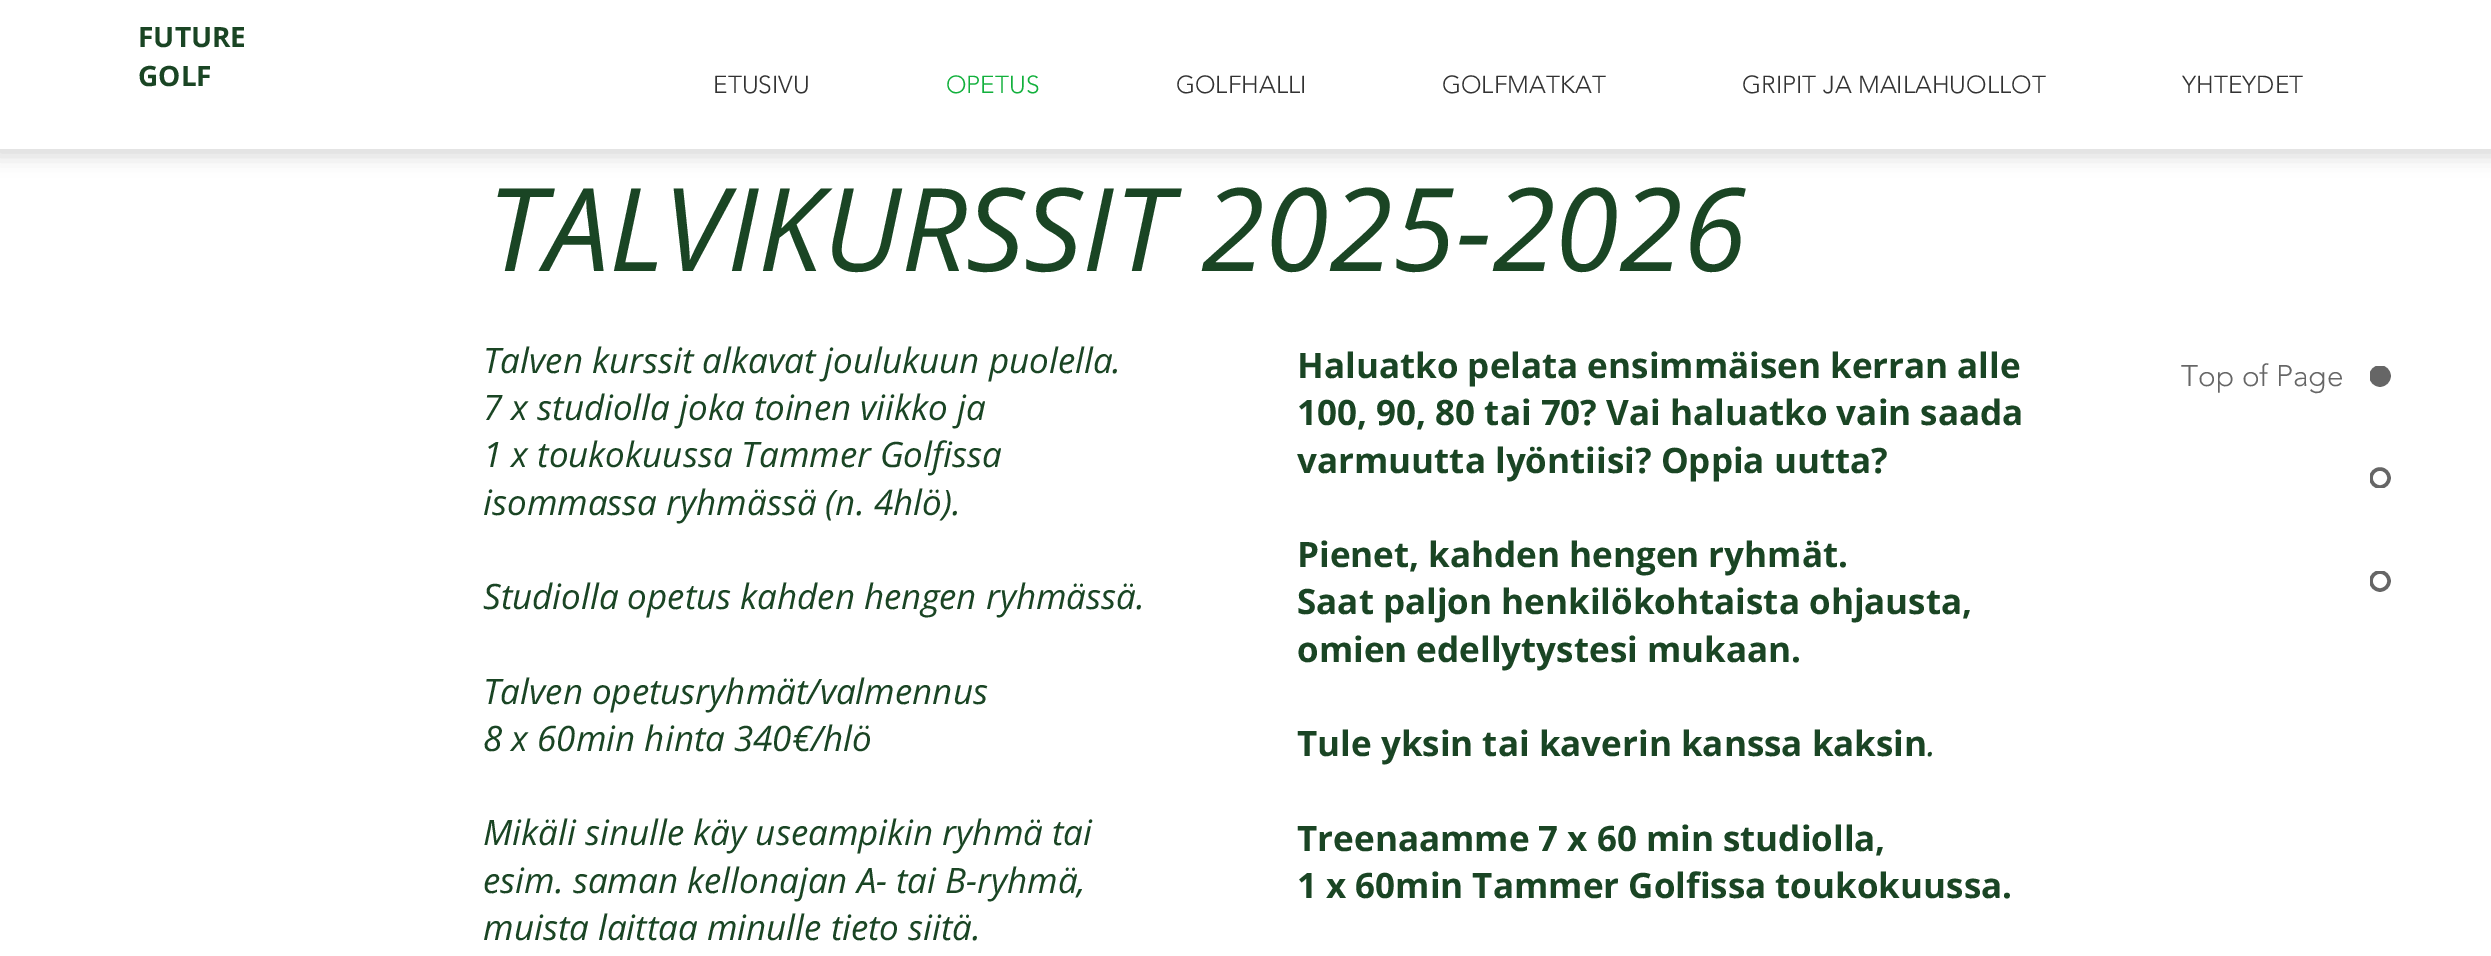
%!PS
<< /PageSize [2491 956] /PageUsesTransparency true >> setpagedevice
/rgb { 3 { 255 div 3 1 roll } repeat setrgbcolor } def
/font { [ exch dup neg 0 0 3 -1 roll 0 0 ] selectfont } def
/alpha { dup .setfillconstantalpha .setstrokeconstantalpha } def
/circle { newpath 0 360 arc closepath } def
/roundrect { 5 dict begin { /r /h /w /y /x } { exch def } forall
  x r add y moveto x w add y 2 copy h add r arct x w add y h add x 1 index r arct
  x y h add x y r arct x y 2 copy exch w add exch r arct closepath end } def
/shadow { 12 dict begin { /a /b /q /h /w /y /x } { exch def } forall gsave /was 0 def
  9 -2 -9 { dup b mul 4 div /e exch def 1 sub .425 mul 2.718 exch exp 1 add a .99 .min exch div /now exch def
    1 1 now sub 1 was sub div sub alpha /was now def
    w h .min e 2 mul add 0 gt { x e sub y e sub w e 2 mul add h e 2 mul add
      q e add b .6 mul add w h .min 2 div e add .min 0 .max roundrect fill } if } for grestore end } def
0 .pushpdf14devicefilter
0 956 translate 1 -1 scale
4 setmiterlimit
255 255 255 rgb
0 0 2491 956 rectfill
0 0 0 rgb
-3 0 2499 156 0 9.5 0.15 shadow
255 255 255 rgb
0 0 2491 149 rectfill
102 102 102 rgb
2380 376 9 circle fill
gsave
2370 366 21 21 rectclip
3.5 setlinewidth
2380 376 9 circle stroke
grestore
gsave
2370 467 21 21 rectclip
3.5 setlinewidth
2380 478 9 circle stroke
grestore
gsave
2370 571 21 21 rectclip
3.5 setlinewidth
2380 581 9 circle stroke
grestore
/OpenSans-Bold 28 font
26 69 36 rgb
138 47 moveto (FUTURE) show
138 86 moveto (GOLF) show
/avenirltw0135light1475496-Light 24.5 font
50 50 50 rgb
713 93 moveto (ETUSIVU) show
18 176 60 rgb
946 93 moveto (OPETUS) show
50 50 50 rgb
[
  [(GOLFHALLI) 1176 93]
  [(GOLFMATKAT) 1442 93]
  [(GRIPIT JA MAILAHUOLLOT) 1742 93]
  [(YHTEYDET) 2182 93]
] { aload pop moveto show } forall
/OpenSans-Italic 115.5 font
26 69 36 rgb
487 271 moveto (TALVIKURSSIT 2025-2026) show
/OpenSans-Italic 35 font
[
  [(Talven kurssit alkavat joulukuun puolella.) 483 373]
  [(7 x studiolla joka toinen viikko ja) 483 420]
  [(1 x toukokuussa Tammer Golfissa) 483 467]
  [(isommassa ryhmässä \(n. 4hlö\).) 483 515]
  [(Studiolla opetus kahden hengen ryhmässä.) 483 609]
  [(Talven opetusryhmät/valmennus) 483 704]
  [(8 x 60min hinta 340€/hlö) 483 751]
  [(Mikäli sinulle käy useampikin ryhmä tai) 483 845]
  [(esim. saman kellonajan A- tai B-ryhmä,) 483 893]
  [(muista laittaa minulle tieto siitä.) 483 940]
] { aload pop moveto show } forall
/OpenSans-Bold 35 font
[
  [(Haluatko pelata ensimmäisen kerran alle) 1297 378]
  [(100, 90, 80 tai 70? Vai haluatko vain saada) 1297 425]
  [(varmuutta lyöntiisi? Oppia uutta?) 1297 473]
  [(Pienet, kahden hengen ryhmät.) 1297 567]
  [(Saat paljon henkilökohtaista ohjausta,) 1297 614]
  [(omien edellytystesi mukaan.) 1297 662]
  [(Tule yksin tai kaverin kanssa kaksin) 1297 756]
] { aload pop moveto show } forall
/OpenSans-Italic 35 font
1927 756 moveto (.) show
/OpenSans-Bold 35 font
1297 851 moveto (Treenaamme 7 x 60 min studiolla,) show
1297 898 moveto (1 x 60min Tammer Golfissa toukokuussa.) show
/avenirltw0135light1475496-Light 29.75 font
102 102 102 rgb
2181 386 moveto (Top of Page) show
.poppdf14devicefilter showpage
